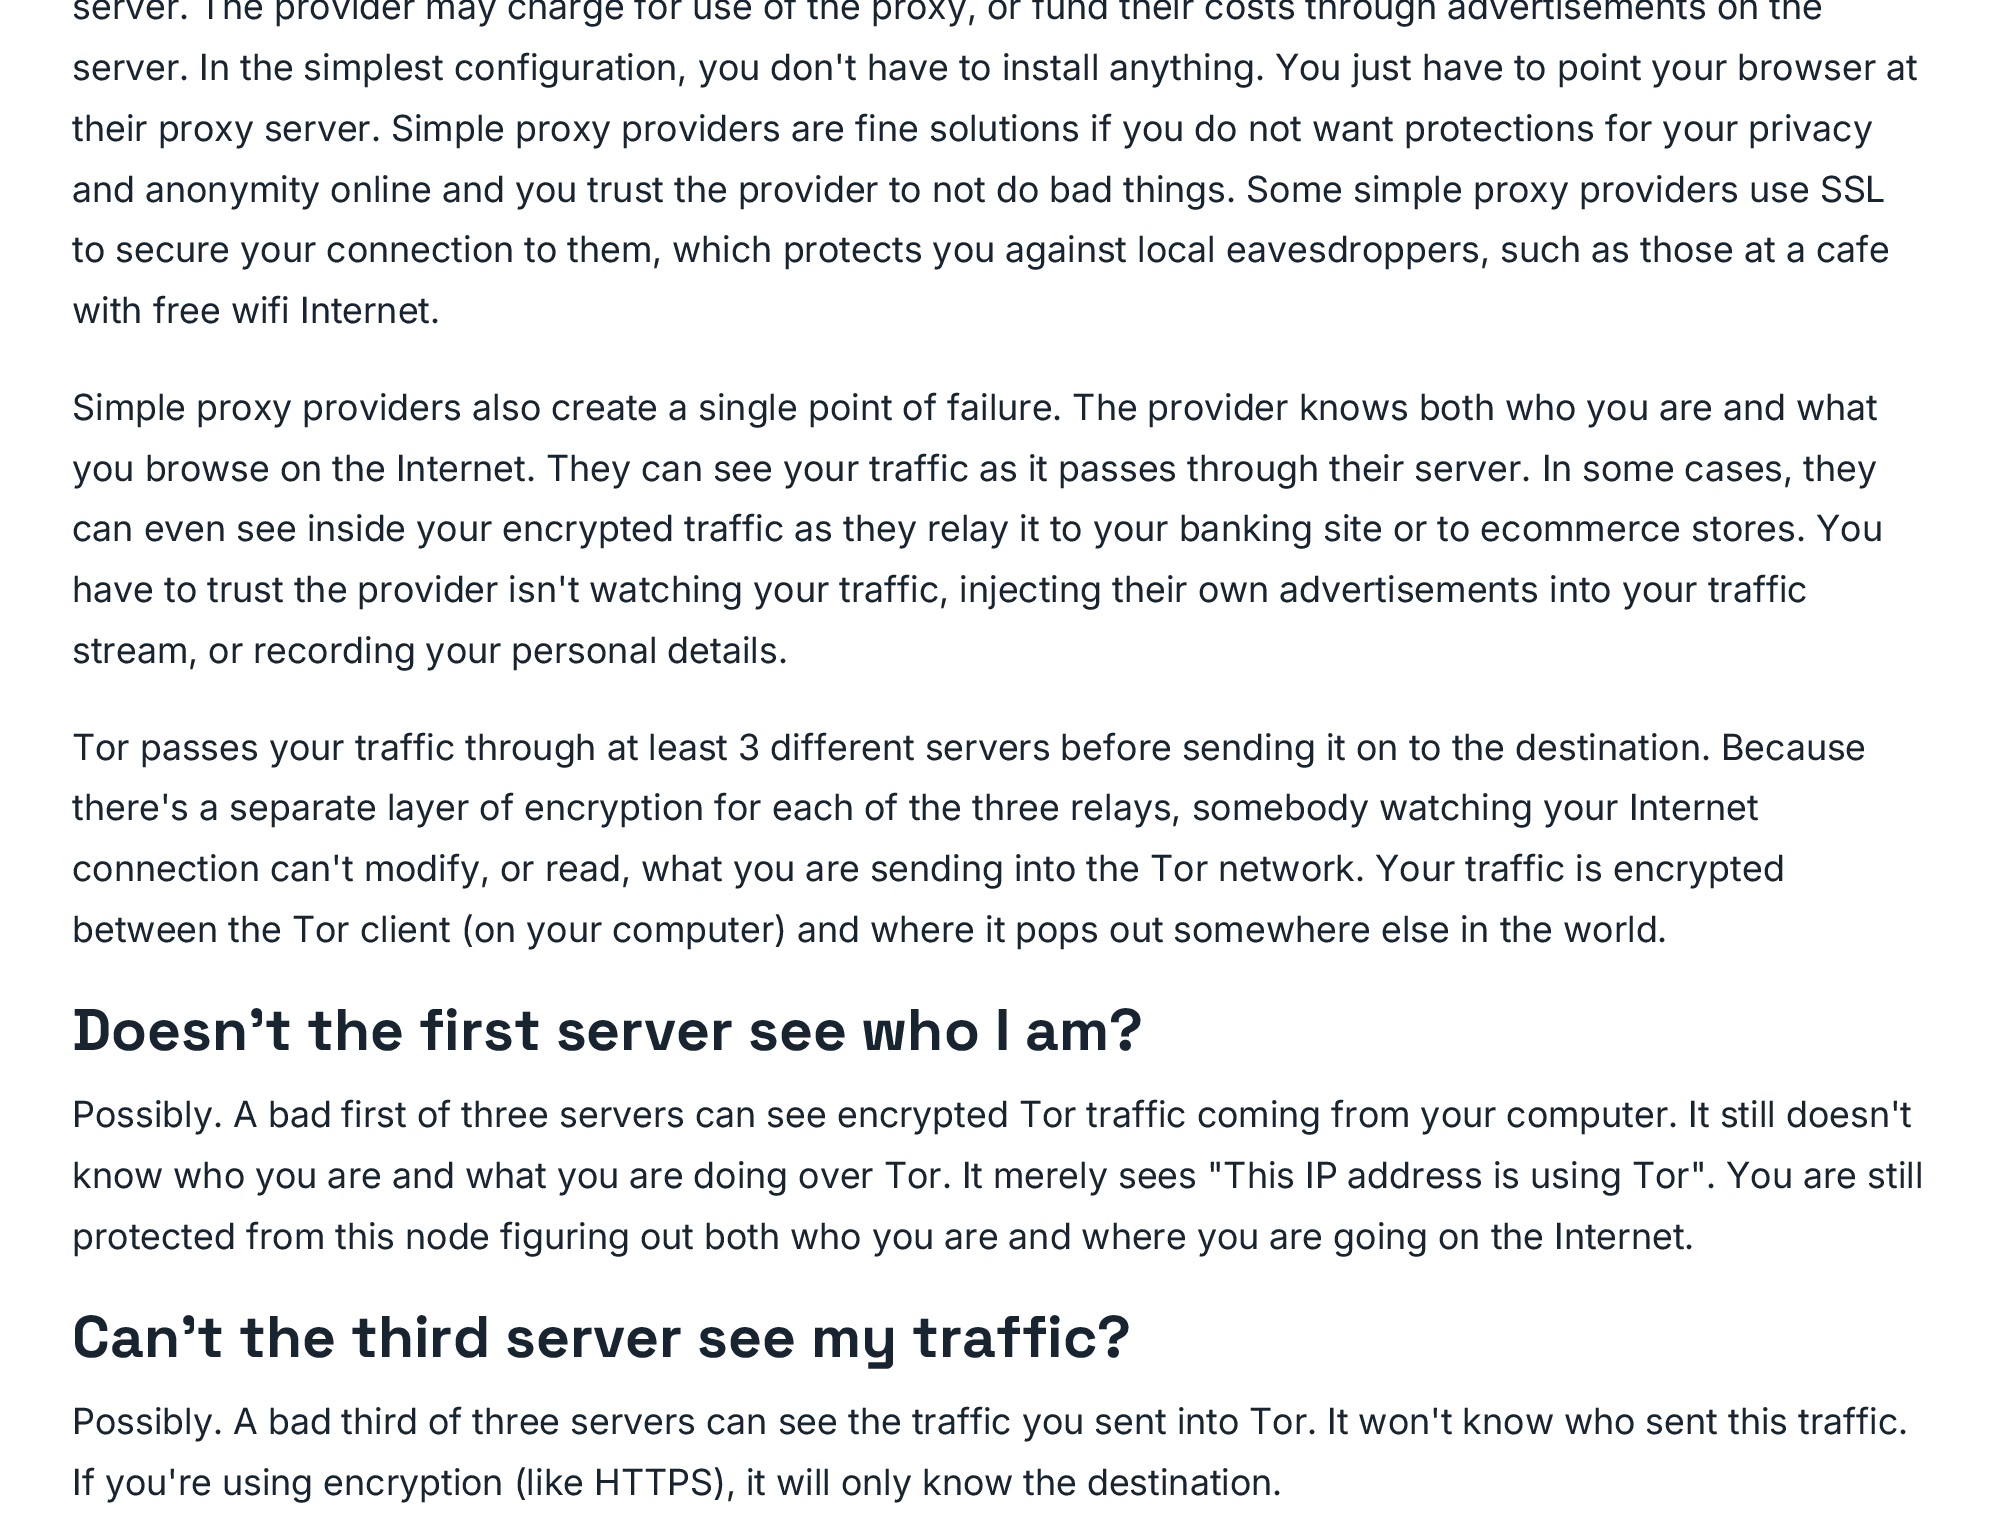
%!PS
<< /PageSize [1995 1514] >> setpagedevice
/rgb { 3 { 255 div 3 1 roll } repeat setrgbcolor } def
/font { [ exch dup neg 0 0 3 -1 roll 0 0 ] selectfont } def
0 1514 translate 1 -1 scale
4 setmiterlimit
255 255 255 rgb
0 0 1995 1514 rectfill
/Inter-Regular 36 font
24 36 47 rgb
[
  [(server. The provider may charge for use of the proxy, or fund their costs through advertisements on the) 72 19]
  [(server. In the simplest configuration, you don't have to install anything. You just have to point your browser at) 72 80]
  [(their proxy server. Simple proxy providers are fine solutions if you do not want protections for your privacy) 72 141]
  [(and anonymity online and you trust the provider to not do bad things. Some simple proxy providers use SSL) 72 202]
  [(to secure your connection to them, which protects you against local eavesdroppers, such as those at a cafe) 72 262]
  [(with free wifi Internet.) 72 323]
  [(Simple proxy providers also create a single point of failure. The provider knows both who you are and what) 72 420]
  [(you browse on the Internet. They can see your traffic as it passes through their server. In some cases, they) 72 481]
  [(can even see inside your encrypted traffic as they relay it to your banking site or to ecommerce stores. You) 72 541]
  [(have to trust the provider isn't watching your traffic, injecting their own advertisements into your traffic) 72 602]
  [(stream, or recording your personal details.) 72 663]
  [(Tor passes your traffic through at least 3 different servers before sending it on to the destination. Because) 72 760]
  [(there's a separate layer of encryption for each of the three relays, somebody watching your Internet) 72 820]
  [(connection can't modify, or read, what you are sending into the Tor network. Your traffic is encrypted) 72 881]
  [(between the Tor client \(on your computer\) and where it pops out somewhere else in the world.) 72 942]
] { aload pop moveto show } forall
/SpaceGrotesk-Bold 58.75 font
72 1050 moveto (Doesn't the first server see who I am?) show
/Inter-Regular 36 font
[
  [(Possibly. A bad first of three servers can see encrypted Tor traffic coming from your computer. It still doesn't) 72 1127]
  [(know who you are and what you are doing over Tor. It merely sees "This IP address is using Tor". You are still) 72 1188]
  [(protected from this node figuring out both who you are and where you are going on the Internet.) 72 1249]
] { aload pop moveto show } forall
/SpaceGrotesk-Bold 58.75 font
72 1357 moveto (Can't the third server see my traffic?) show
/Inter-Regular 36 font
72 1434 moveto (Possibly. A bad third of three servers can see the traffic you sent into Tor. It won't know who sent this traffic.) show
72 1495 moveto (If you're using encryption \(like HTTPS\), it will only know the destination.) show
showpage
